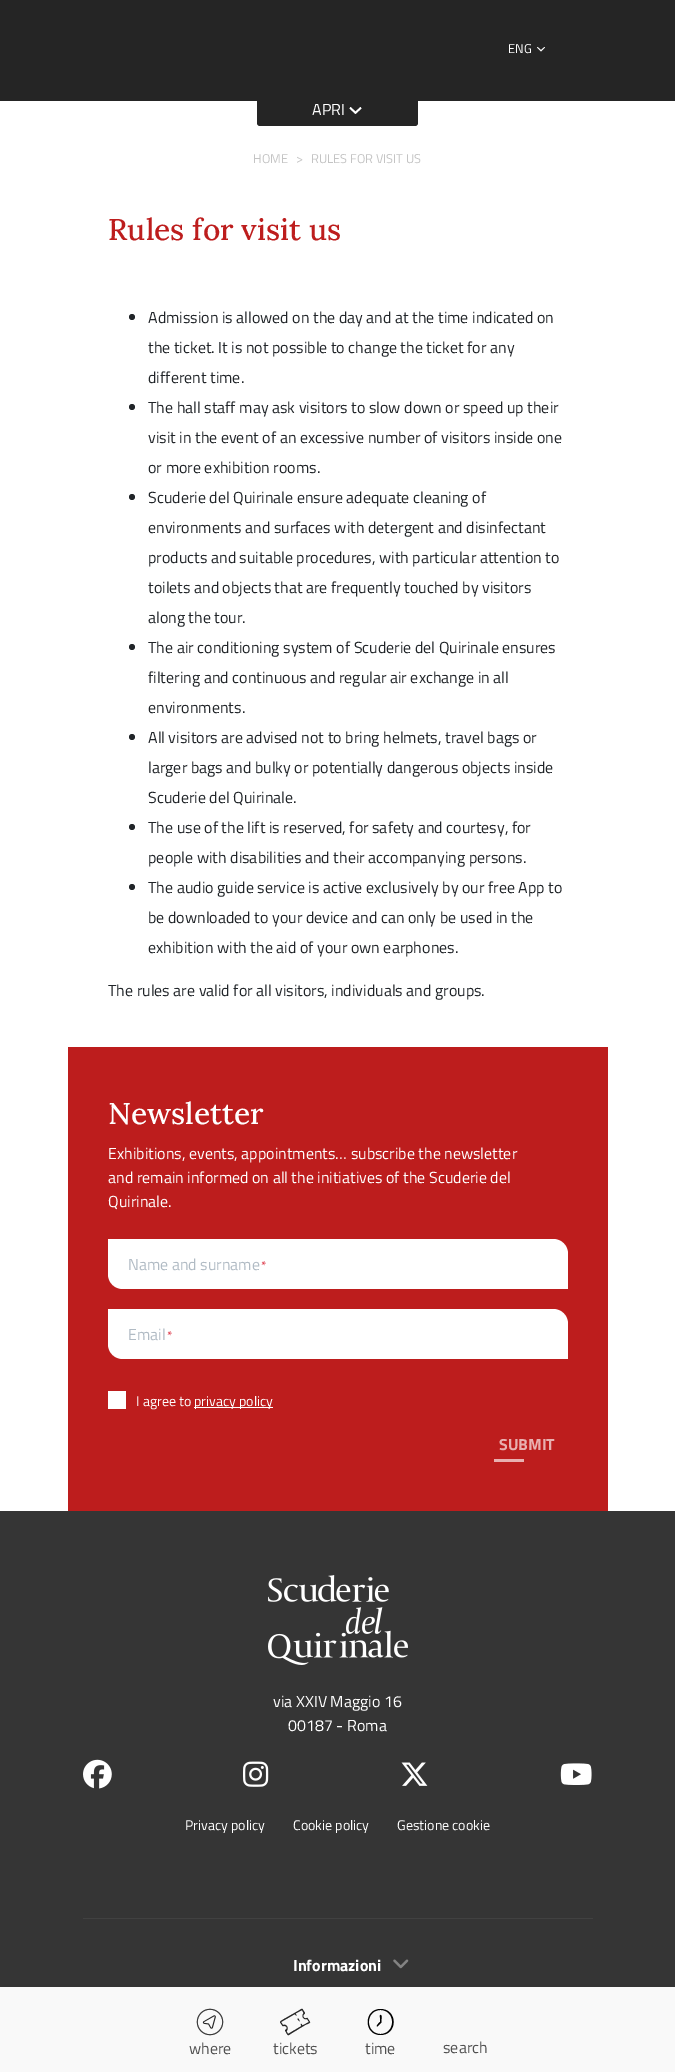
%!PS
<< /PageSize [675 2072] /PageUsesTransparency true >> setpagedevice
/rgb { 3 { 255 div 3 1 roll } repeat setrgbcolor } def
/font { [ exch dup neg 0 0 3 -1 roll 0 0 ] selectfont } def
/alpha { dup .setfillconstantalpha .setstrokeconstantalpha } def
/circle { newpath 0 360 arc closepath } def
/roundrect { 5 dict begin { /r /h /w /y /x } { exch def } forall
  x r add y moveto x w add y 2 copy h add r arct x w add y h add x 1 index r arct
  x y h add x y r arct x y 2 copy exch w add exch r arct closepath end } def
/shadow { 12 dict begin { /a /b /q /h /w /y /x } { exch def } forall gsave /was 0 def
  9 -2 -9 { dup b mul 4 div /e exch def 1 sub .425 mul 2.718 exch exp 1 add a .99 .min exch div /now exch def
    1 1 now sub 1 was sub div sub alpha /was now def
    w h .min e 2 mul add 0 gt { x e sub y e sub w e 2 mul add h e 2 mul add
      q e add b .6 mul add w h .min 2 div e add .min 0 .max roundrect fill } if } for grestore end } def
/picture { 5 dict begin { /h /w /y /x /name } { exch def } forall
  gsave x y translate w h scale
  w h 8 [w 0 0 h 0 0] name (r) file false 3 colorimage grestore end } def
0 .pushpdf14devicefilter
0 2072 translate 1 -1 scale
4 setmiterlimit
255 255 255 rgb
0 0 675 2072 rectfill
37 37 37 rgb
0 0 675 101 rectfill
255 255 255 rgb
541 51.5 moveto 537 47.5 lineto 537.5 47 lineto 541 50 lineto 544.5 47 lineto 545 47.5 lineto 541.5 51 lineto closepath fill
37 37 37 rgb
257 97 moveto 418 97 lineto 418 123 lineto 418 124.5 416.5 126 415 126 curveto 260 126 lineto 258.5 126 257 124.5 257 123 curveto closepath fill
255 255 255 rgb
355.5 114 moveto 349.5 108.5 lineto 350.5 107 lineto 355.5 111.5 lineto 360.5 107 lineto 361.5 108.5 lineto 356 113.5 lineto closepath fill
33 37 41 rgb
132 317 3 circle fill
132 407 3 circle fill
132 497 3 circle fill
132 647 3 circle fill
132 737 3 circle fill
132 827 3 circle fill
132 887 3 circle fill
189 29 29 rgb
68 1047 540 464 rectfill
255 255 255 rgb
108 1239 moveto 553 1239 lineto 561.5 1239 568 1245.5 568 1254 curveto 568 1289 lineto 123 1289 lineto 114.5 1289 108 1282.5 108 1274 curveto closepath fill
108 1309 moveto 553 1309 lineto 561.5 1309 568 1315.5 568 1324 curveto 568 1359 lineto 123 1359 lineto 114.5 1359 108 1352.5 108 1344 curveto closepath fill
[
  [108 1391 18 18 255 255 255]
  [194 1407 79 1 255 255 255]
  [494 1459 30 3 232 176 176]
  [0 1511 675 476 53 53 53]
  [83 1918 510 1 65 65 65]
] { aload pop rgb rectfill } forall
(img/1.rgb) 268 1575 140 90 picture
(img/2.rgb) 83 1759 29 30 picture
(img/3.rgb) 243 1761 26 26 picture
(img/4.rgb) 401 1762 27 24 picture
(img/5.rgb) 560 1763 32 22 picture
(img/6.rgb) 393 1959 16 10 picture
50 50 50 rgb
0 1987 675 85 0 15 0.75 shadow
249 249 249 rgb
0 1987 675 85 rectfill
(img/7.rgb) 196 2008 28 28 picture
37 37 37 rgb
282.5 2026 moveto 279.5 2021 278.5 2022.5 284 2019 curveto 298 2011 lineto 298.5 2011 302 2008 302.5 2009 curveto 305 2013 lineto 305 2014 302.5 2014.5 303.5 2017 curveto 305 2019.5 307 2017.5 307.5 2018 curveto 310 2022 lineto 310.5 2023 306.5 2024.5 306 2024.5 curveto 292 2033 lineto 289 2034.5 288.5 2036.5 287 2034 curveto 285 2030.5 lineto 285 2030 287.5 2029 286.5 2027 curveto 285 2025 283 2026.5 282.5 2026 curveto closepath 302.5 2016 moveto 302.5 2015 303 2014 303.5 2013 curveto 302 2010 lineto 295.5 2013.5 lineto 297 2016 296.5 2016.5 295 2014 curveto 281 2022 lineto 283 2025 lineto 286.5 2023.5 289.5 2028.5 286.5 2031 curveto 288 2034 lineto 301.5 2026 lineto 300 2023.5 301 2023 302.5 2025.5 curveto 309 2022 lineto 307 2019 lineto 305 2020 302.5 2018 302.5 2016 curveto closepath eofill
298.5 2018.5 moveto 299 2019.5 lineto 300 2021.5 299 2021.5 299 2021 curveto 298.5 2020.5 297 2019 298 2018.5 curveto closepath fill
0 0 0 rgb
380.5 2035 moveto 363.5 2035 363.5 2009 380.5 2009 curveto 398 2009 398 2035 380.5 2035 curveto closepath 380.5 2010 moveto 365 2010 365 2034 380.5 2034 curveto 396 2034 396 2010 380.5 2010 curveto closepath eofill
377.5 2026.5 moveto 375 2026.5 379.5 2022.5 380 2022 curveto 380 2017.5 lineto 380 2017 379.5 2015 380.5 2015 curveto 382 2014.5 381.5 2018.5 381.5 2019 curveto 381.5 2022.5 lineto closepath fill
/TitilliumWeb-Regular 12.75 font
255 255 255 rgb
508 53 moveto (ENG) show
/TitilliumWeb-Regular 16 font
312 115 moveto (APRI) show
/TitilliumWeb-Regular 12.75 font
196 196 196 rgb
[
  [(HOME) 253 163]
  [(>) 296 163]
  [(RULES FOR VISIT US) 311 163]
] { aload pop moveto show } forall
/Lora-Medium 30 font
189 29 29 rgb
108 240 moveto (Rules for visit us) show
/TitilliumWeb-Regular 16 font
33 37 41 rgb
[
  [(Admission is allowed on the day and at the time indicated on) 148 323]
  [(the ticket. It is not possible to change the ticket for any) 148 353]
  [(different time.) 148 383]
  [(The hall staff may ask visitors to slow down or speed up their) 148 413]
  [(visit in the event of an excessive number of visitors inside one) 148 443]
  [(or more exhibition rooms.) 148 473]
  [(Scuderie del Quirinale ensure adequate cleaning of) 148 503]
  [(environments and surfaces with detergent and disinfectant) 148 533]
  [(products and suitable procedures, with particular attention to) 148 563]
  [(toilets and objects that are frequently touched by visitors) 148 593]
  [(along the tour.) 148 623]
  [(The air conditioning system of Scuderie del Quirinale ensures) 148 653]
  [(filtering and continuous and regular air exchange in all) 148 683]
  [(environments.) 148 713]
  [(All visitors are advised not to bring helmets, travel bags or) 148 743]
  [(larger bags and bulky or potentially dangerous objects inside) 148 773]
  [(Scuderie del Quirinale.) 148 803]
  [(The use of the lift is reserved, for safety and courtesy, for) 148 833]
  [(people with disabilities and their accompanying persons.) 148 863]
  [(The audio guide service is active exclusively by our free App to) 148 893]
  [(be downloaded to your device and can only be used in the) 148 923]
  [(exhibition with the aid of your own earphones.) 148 953]
  [(The rules are valid for all visitors, individuals and groups.) 108 996]
] { aload pop moveto show } forall
/Lora-Medium 30 font
255 255 255 rgb
108 1124 moveto (Newsletter) show
/TitilliumWeb-Regular 16 font
[
  [(Exhibitions, events, appointments… subscribe the newsletter) 108 1159]
  [(and remain informed on all the initiatives of the Scuderie del) 108 1183]
  [(Quirinale.) 108 1207]
] { aload pop moveto show } forall
177 187 196 rgb
128 1270 moveto (Name and surname) show
/TitilliumWeb-Regular 12.75 font
220 53 69 rgb
261 1270 moveto (*) show
/TitilliumWeb-Regular 16 font
177 187 196 rgb
128 1340 moveto (Email) show
/TitilliumWeb-Regular 12.75 font
220 53 69 rgb
167 1340 moveto (*) show
/TitilliumWeb-Regular 14 font
255 255 255 rgb
136 1406 moveto (I agree to) show
194 1406 moveto (privacy policy) show
/TitilliumWeb-Bold 16 font
232 176 176 rgb
499 1450 moveto (SUBMIT) show
/TitilliumWeb-Regular 16 font
255 255 255 rgb
273 1707 moveto (via XXIV Maggio 16) show
288 1731 moveto (00187 - Roma) show
/TitilliumWeb-Regular 14 font
[
  [(Privacy policy) 185 1830]
  [(Cookie policy) 293 1830]
  [(Gestione cookie) 397 1830]
] { aload pop moveto show } forall
/TitilliumWeb-Bold 16 font
293 1971 moveto (Informazioni) show
/TitilliumWeb-Regular 16 font
81 81 81 rgb
[
  [(where) 189 2054]
  [(tickets) 273 2054]
  [(time) 365 2054]
  [(search) 443 2053]
] { aload pop moveto show } forall
.poppdf14devicefilter showpage
